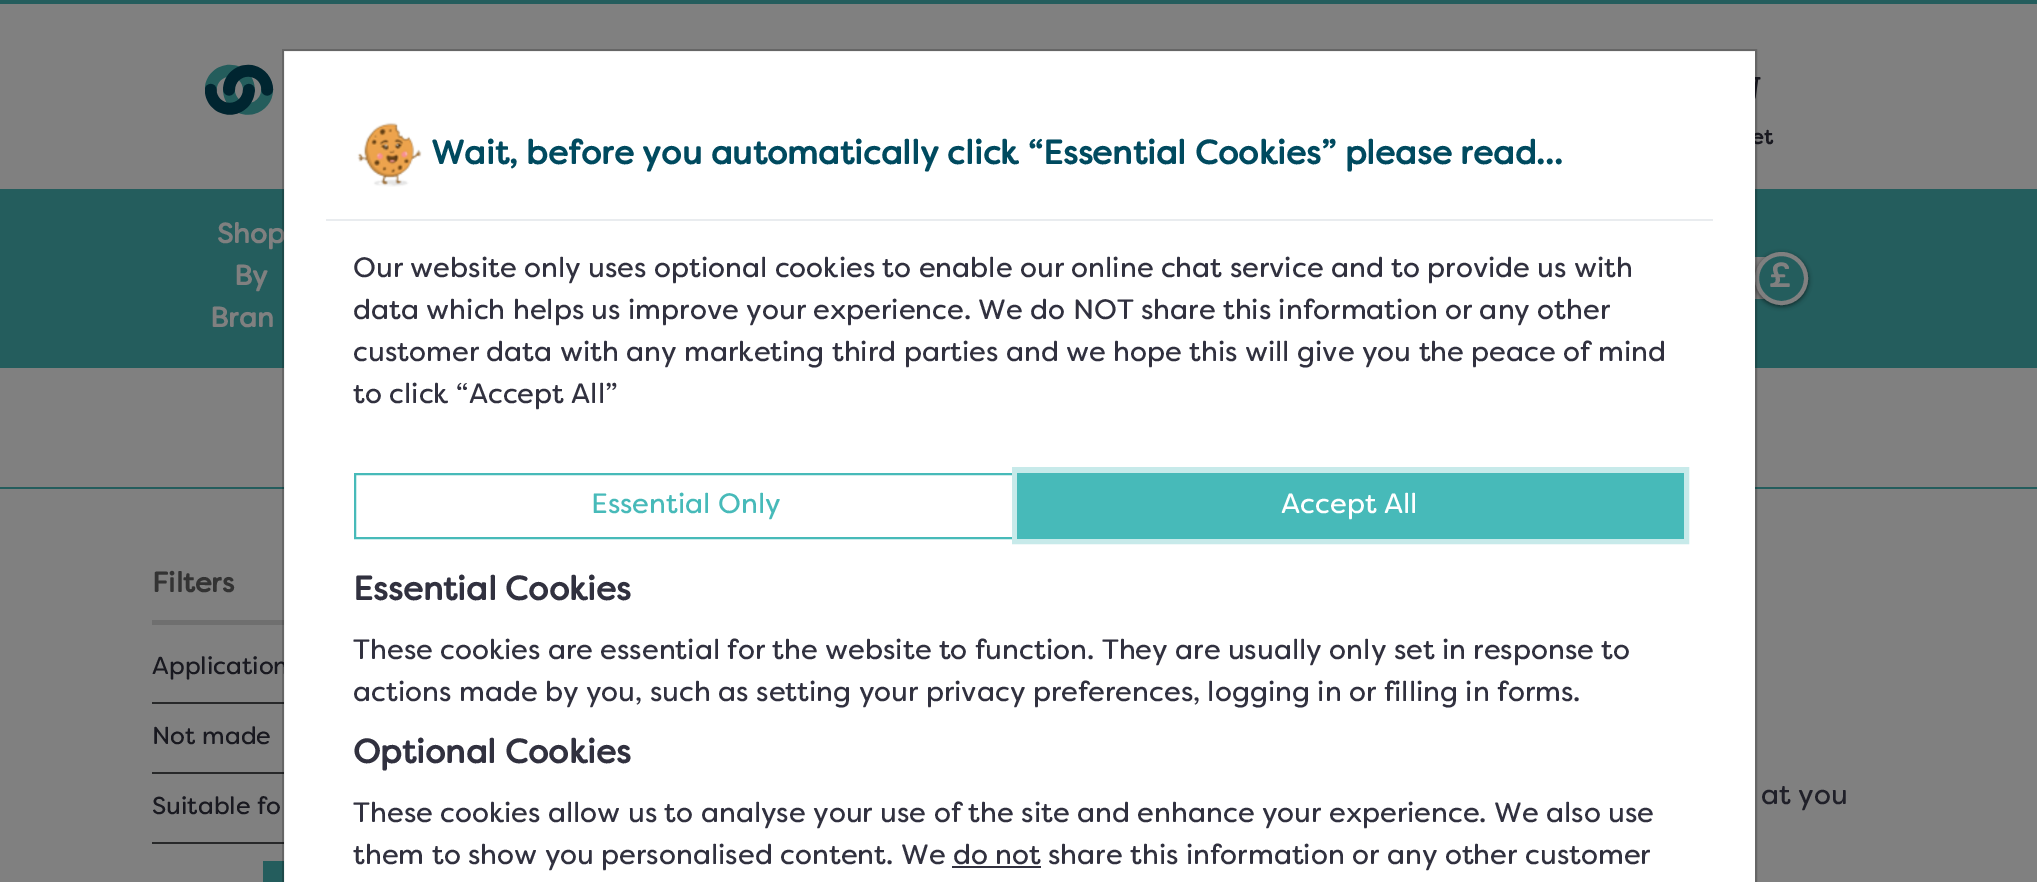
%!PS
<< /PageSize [2037 882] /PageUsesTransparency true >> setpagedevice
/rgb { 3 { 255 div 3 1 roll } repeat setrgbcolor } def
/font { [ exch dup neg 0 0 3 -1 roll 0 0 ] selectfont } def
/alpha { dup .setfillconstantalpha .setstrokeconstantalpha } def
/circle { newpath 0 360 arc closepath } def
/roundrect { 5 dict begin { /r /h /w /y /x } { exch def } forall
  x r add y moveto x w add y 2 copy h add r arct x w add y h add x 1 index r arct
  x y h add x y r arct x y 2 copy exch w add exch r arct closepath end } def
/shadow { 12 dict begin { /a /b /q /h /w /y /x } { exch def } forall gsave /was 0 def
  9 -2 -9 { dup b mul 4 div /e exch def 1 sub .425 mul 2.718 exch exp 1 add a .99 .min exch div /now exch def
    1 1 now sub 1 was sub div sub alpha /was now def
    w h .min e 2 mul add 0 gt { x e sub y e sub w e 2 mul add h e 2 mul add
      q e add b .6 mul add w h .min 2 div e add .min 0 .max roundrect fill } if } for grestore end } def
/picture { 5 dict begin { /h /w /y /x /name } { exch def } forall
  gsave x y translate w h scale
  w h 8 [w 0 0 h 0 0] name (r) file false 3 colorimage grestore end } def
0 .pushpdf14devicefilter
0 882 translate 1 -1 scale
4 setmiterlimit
128 128 128 rgb
0 0 2037 882 rectfill
36 93 93 rgb
0 0 2037 4 rectfill
(img/1.rgb) 205 64 69 51 picture
(img/2.rgb) 1755 77 6 22 picture
0 189 2037 179 rectfill
128 128 128 rgb
1717 257 91 42 21 roundrect fill
0 0 0 rgb
1755 254 53 52 26 2.5 0.6 shadow
36 93 93 rgb
1781.5 278.5 24.5 circle gsave fill grestore
128 128 128 rgb
4 setlinewidth
stroke
[
  [0 487 2037 2 36 93 93]
  [152 620 132 5 111 111 111]
  [152 702 132 2 39 40 41]
  [152 772 132 2 39 40 41]
  [152 842 132 2 39 40 41]
  [263 861 21 21 36 93 93]
] { aload pop rgb rectfill } forall
/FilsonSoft-Bold 21 font
25 25 32 rgb
1751 144 moveto (et) show
/FilsonSoft-Bold 28 font
128 128 128 rgb
[
  [(Shop) 217 243]
  [(By) 234 285]
  [(Bran) 210 327]
] { aload pop moveto show } forall
/FilsonSoft-Bold 33.6 font
1769 287 moveto (£) show
/FilsonSoft-Bold 28 font
51 51 51 rgb
152 592 moveto (Filters) show
/FilsonSoft-Regular 24.5 font
25 25 32 rgb
152 674 moveto (Application) show
255 255 255 rgb
284 51 1471 831 rectfill
0.2 alpha
0 0 0 rgb
2 setlinewidth
283 50 1473 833 rectstroke
1 alpha
71 186 185 rgb
355 474 663 64 rectstroke
199 234 234 rgb
6 setlinewidth
1015 470 671 71 rectstroke
71 186 185 rgb
1017 473 667 66 rectfill
/FilsonSoft-Regular 28 font
255 255 255 rgb
1281 513 moveto (Accept All) show
49 49 63 rgb
952 866 89 2 rectfill
353 864 moveto (them to show you personalised content. We do not share this information or any other customer) show
353 822 moveto (These cookies allow us to analyse your use of the site and enhance your experience. We also use) show
/FilsonSoft-Bold 33.6 font
353 763 moveto (Optional Cookies) show
/FilsonSoft-Regular 28 font
353 701 moveto (actions made by you, such as setting your privacy preferences, logging in or filling in forms.) show
353 659 moveto (These cookies are essential for the website to function. They are usually only set in response to) show
/FilsonSoft-Bold 33.6 font
353 600 moveto (Essential Cookies) show
/FilsonSoft-Regular 28 font
71 186 185 rgb
591 513 moveto (Essential Only) show
49 49 63 rgb
[
  [(to click “Accept All”) 353 403]
  [(customer data with any marketing third parties and we hope this will give you the peace of mind) 353 361]
  [(data which helps us improve your experience. We do NOT share this information or any other) 353 319]
  [(Our website only uses optional cookies to enable our online chat service and to provide us with) 353 277]
] { aload pop moveto show } forall
/FilsonSoft-Bold 33.6 font
0 74 95 rgb
431 164 moveto (Wait, before you automatically click “Essential Cookies” please read...) show
(img/3.rgb) 357 122 65 65 picture
233 236 239 rgb
326 219 1387 2 rectfill
/FilsonSoft-Regular 24.5 font
25 25 32 rgb
152 744 moveto (Not made) show
152 814 moveto (Suitable fo) show
/FilsonSoft-Regular 28 font
32 32 41 rgb
1761 804 moveto (at you) show
.poppdf14devicefilter showpage
